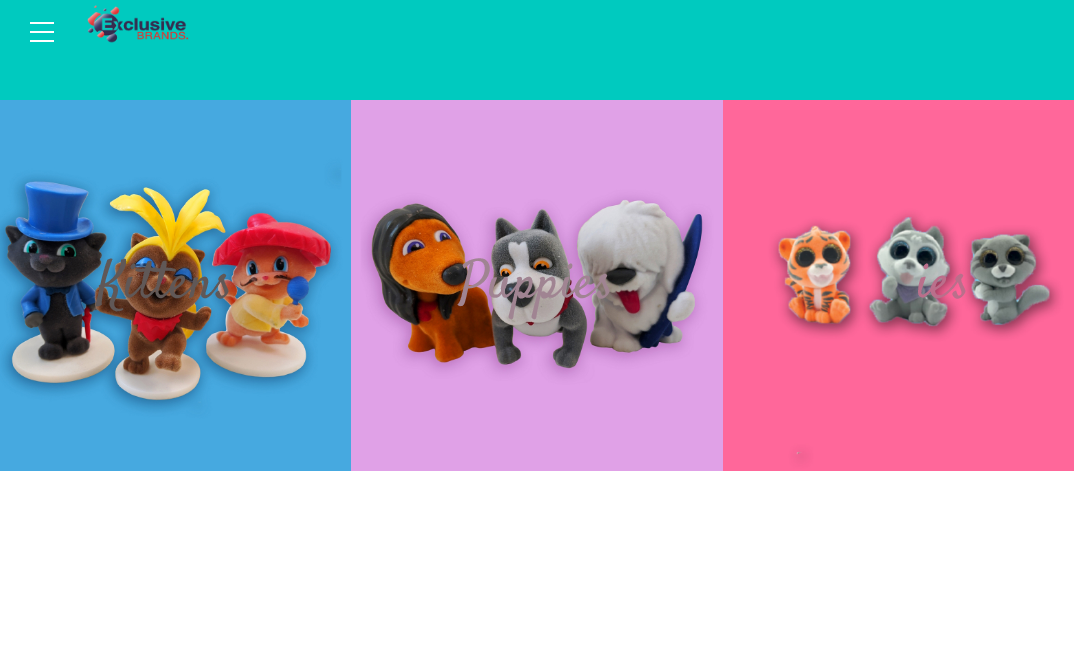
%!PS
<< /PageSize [1074 656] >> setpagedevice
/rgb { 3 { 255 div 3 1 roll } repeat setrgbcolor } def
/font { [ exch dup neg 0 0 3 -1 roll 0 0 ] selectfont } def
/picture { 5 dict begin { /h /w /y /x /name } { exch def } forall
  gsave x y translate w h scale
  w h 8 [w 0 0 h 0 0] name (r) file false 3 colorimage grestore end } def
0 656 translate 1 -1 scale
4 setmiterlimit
255 255 255 rgb
0 0 1074 656 rectfill
[
  [0 0 1074 100 0 202 191]
  [30 22 24 2 255 255 255]
  [30 31 24 2 255 255 255]
  [30 40 24 2 255 255 255]
] { aload pop rgb rectfill } forall
(img/1.rgb) 87 5 102 38 picture
(img/2.rgb) 0 100 351 371 picture
(img/3.rgb) 351 100 372 371 picture
(img/4.rgb) 723 100 351 371 picture
/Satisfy-Regular 52.5 font
96 88 87 rgb
98 297 moveto (Kittens) show
160 132 146 rgb
460 297 moveto (Puppies) show
186 111 139 rgb
917 297 moveto (ies) show
showpage
